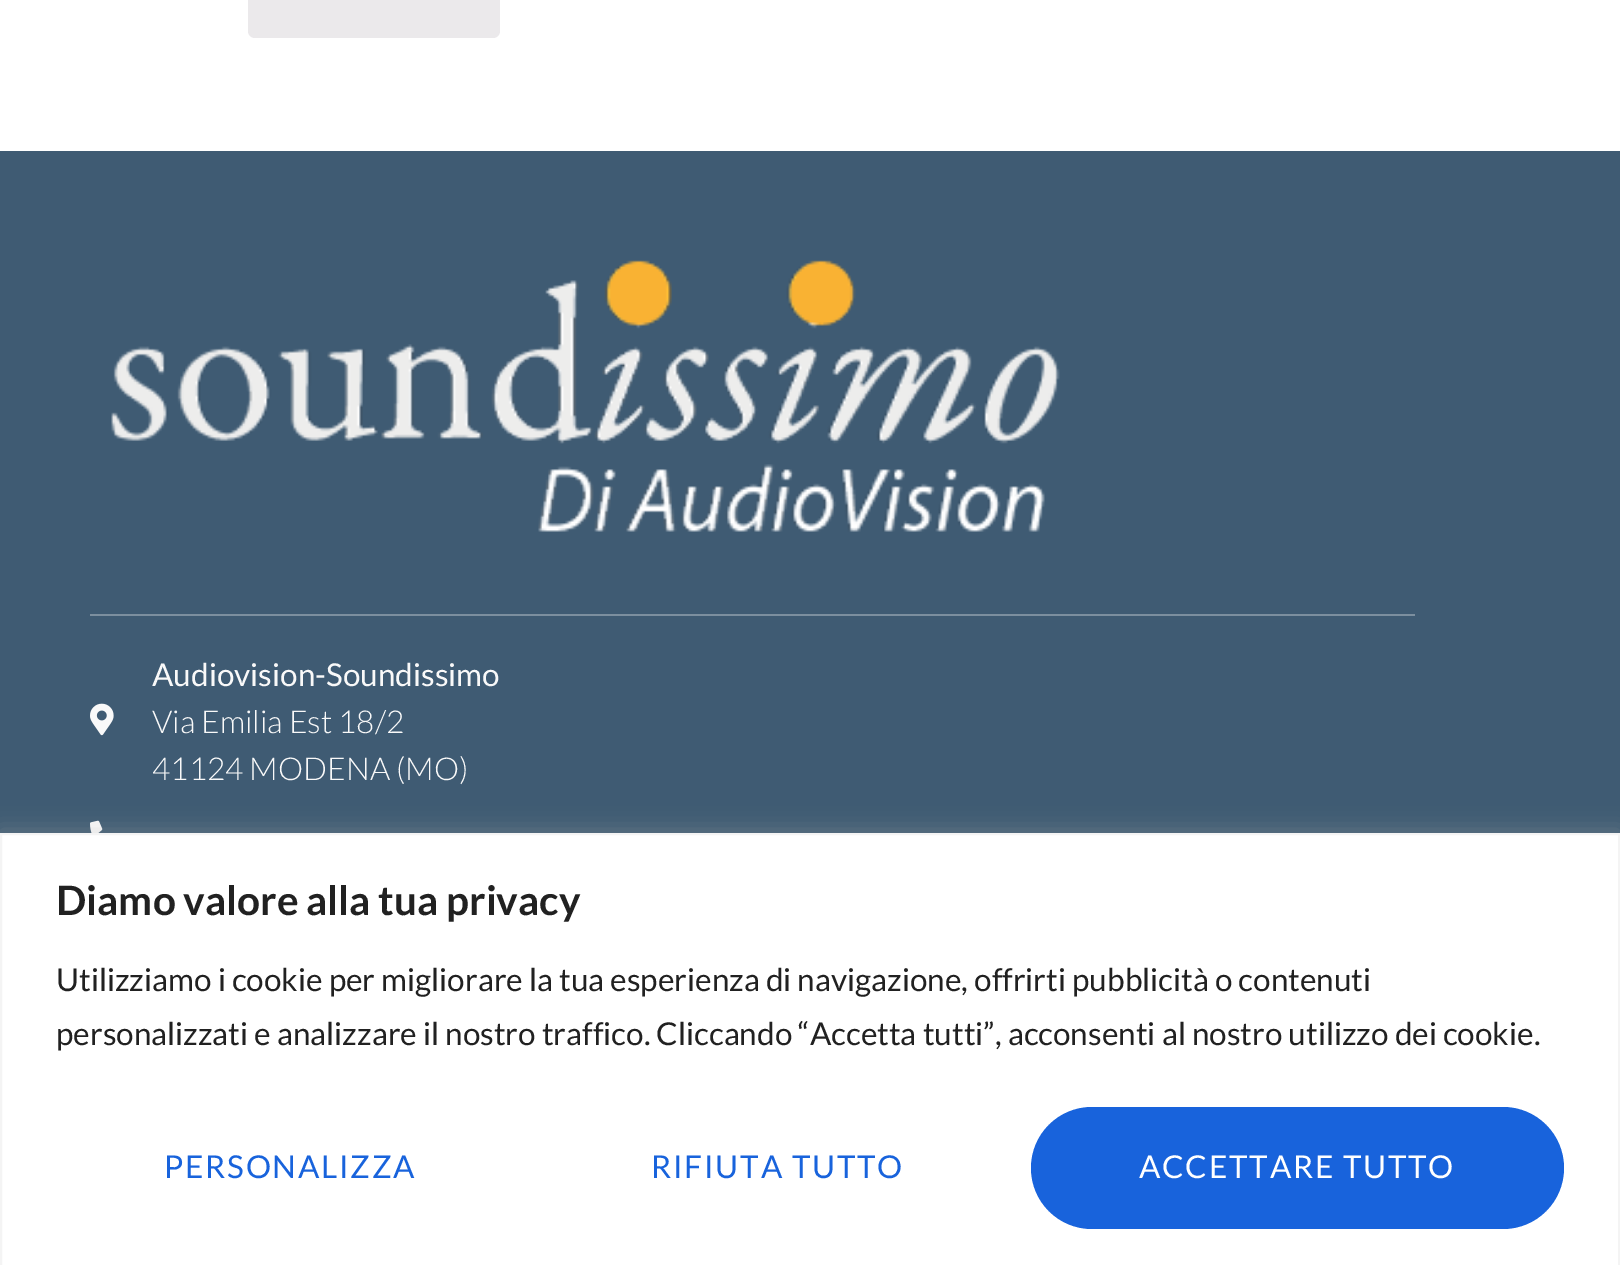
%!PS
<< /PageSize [1620 1265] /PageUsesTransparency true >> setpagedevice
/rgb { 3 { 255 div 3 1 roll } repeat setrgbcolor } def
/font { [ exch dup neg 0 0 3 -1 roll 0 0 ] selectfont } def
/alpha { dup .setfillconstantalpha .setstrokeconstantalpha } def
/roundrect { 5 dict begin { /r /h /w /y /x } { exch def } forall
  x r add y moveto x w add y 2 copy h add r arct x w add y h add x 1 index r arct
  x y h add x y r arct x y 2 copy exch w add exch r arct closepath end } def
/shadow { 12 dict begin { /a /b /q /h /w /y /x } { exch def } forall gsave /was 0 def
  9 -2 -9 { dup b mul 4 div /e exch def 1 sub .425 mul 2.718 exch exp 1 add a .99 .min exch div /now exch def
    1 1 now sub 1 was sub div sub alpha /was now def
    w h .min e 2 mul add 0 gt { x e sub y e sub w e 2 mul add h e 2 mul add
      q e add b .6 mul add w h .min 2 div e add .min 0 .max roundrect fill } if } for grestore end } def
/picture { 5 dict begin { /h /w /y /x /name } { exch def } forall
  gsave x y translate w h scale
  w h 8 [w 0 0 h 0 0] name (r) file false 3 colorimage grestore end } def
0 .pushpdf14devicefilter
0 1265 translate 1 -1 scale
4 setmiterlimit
255 255 255 rgb
0 0 1620 1265 rectfill
235 233 235 rgb
248 -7 252 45 7 roundrect fill
63 91 115 rgb
0 151 1620 682 rectfill
(img/1.rgb) 111 260 949 272 picture
124 143 159 rgb
90 614 1325 2 rectfill
(img/2.rgb) 90 703 24 33 picture
(img/3.rgb) 90 820 13 13 picture
172 171 171 rgb
0 830 1620 435 0 11 0.3 shadow
255 255 255 rgb
1 834 moveto 1619 834 lineto 1619 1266 lineto 1 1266 lineto closepath gsave fill grestore
244 244 244 rgb
2 setlinewidth
stroke
24 99 220 rgb
1031 1107 533 122 61 roundrect fill
/Lato-Regular 31.5 font
249 249 249 rgb
152 686 moveto (Audiovision-Soundissimo) show
/Lato-Light 31.5 font
152 733 moveto (Via Emilia Est 18/2) show
152 780 moveto (41124 MODENA \(MO\)) show
/Lato-Bold 40.5 font
33 33 33 rgb
56 915 moveto (Diamo valore alla tua privacy) show
/Lato-Regular 31.5 font
56 991 moveto (Utilizziamo i cookie per migliorare la tua esperienza di navigazione, offrirti pubblicità o contenuti) show
56 1045 moveto (personalizzati e analizzare il nostro traffico. Cliccando “Accetta tutti”, acconsenti al nostro utilizzo dei cookie.) show
24 99 220 rgb
164 1178 moveto 1.75 0 (PERSONALIZZA) ashow
651 1178 moveto 1.75 0 (RIFIUTA TUTTO) ashow
255 255 255 rgb
1139 1178 moveto 1.75 0 (ACCETTARE TUTTO) ashow
.poppdf14devicefilter showpage
